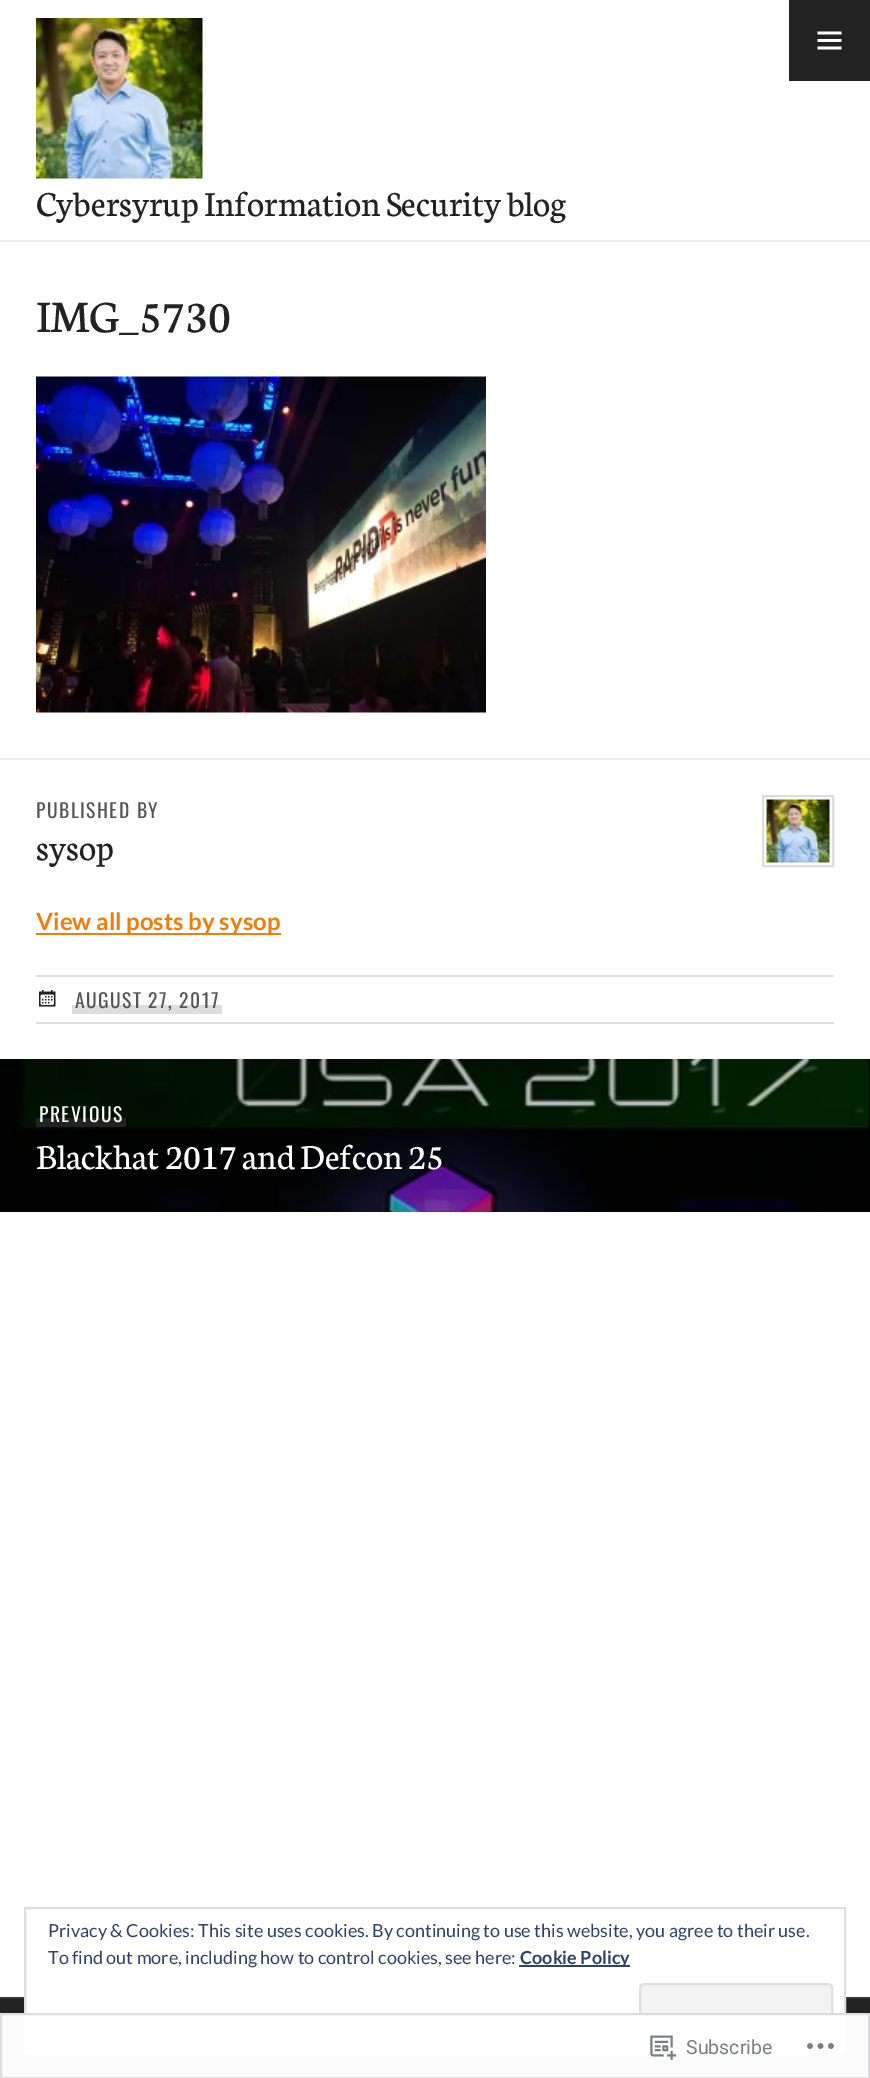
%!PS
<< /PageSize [870 2078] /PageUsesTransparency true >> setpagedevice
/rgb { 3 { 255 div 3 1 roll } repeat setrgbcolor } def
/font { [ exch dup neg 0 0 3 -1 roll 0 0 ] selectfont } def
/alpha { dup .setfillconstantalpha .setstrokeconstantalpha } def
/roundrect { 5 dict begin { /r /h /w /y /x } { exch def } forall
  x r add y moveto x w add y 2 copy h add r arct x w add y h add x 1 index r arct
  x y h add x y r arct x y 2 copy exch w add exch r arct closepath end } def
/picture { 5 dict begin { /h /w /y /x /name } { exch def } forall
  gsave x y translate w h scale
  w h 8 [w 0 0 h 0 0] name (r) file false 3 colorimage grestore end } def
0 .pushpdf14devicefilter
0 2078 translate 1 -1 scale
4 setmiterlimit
255 255 255 rgb
0 0 870 2078 rectfill
34 34 34 rgb
789 0 81 81 rectfill
(img/1.rgb) 817 31 25 19 picture
238 238 238 rgb
0 240 870 2 rectfill
(img/2.rgb) 36 18 167 161 picture
(img/3.rgb) 36 376 450 337 picture
0 758 870 2 rectfill
221 221 221 rgb
2 setlinewidth
763 796 70 70 rectstroke
(img/4.rgb) 766 799 64 64 picture
[
  [36 933 245 2 239 125 11]
  [36 975 798 2 221 221 221]
  [36 1022 798 2 221 221 221]
] { aload pop rgb rectfill } forall
(img/5.rgb) 39 990 17 17 picture
72 1005 150 9 rectfill
(img/6.rgb) 0 1059 870 153 picture
[
  [36 1118 90 9 34 34 34]
  [0 1999 870 79 34 34 34]
  [0 1997 870 2 51 51 51]
  [26 1997 818 56 255 255 255]
] { aload pop rgb rectfill } forall
222 222 222 rgb
25 1908 820 146 rectstroke
46 68 103 rgb
519 1965 111 2 rectfill
243 243 243 rgb
640 1984 192 57 4 roundrect gsave fill grestore
222 222 222 rgb
stroke
0.98 alpha
255 255 255 rgb
0 2013 870 65 rectfill
220 220 222 rgb
1 2014 868 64 rectstroke
1 alpha
(img/7.rgb) 650 2035 27 25 picture
(img/8.rgb) 807 2043 27 6 picture
/Neuton-Regular 37.5 font
34 34 34 rgb
36 216 moveto (Cybersyrup Information Security blog) show
/Neuton-Regular 48 font
36 332 moveto (IMG_5730) show
/Oswald-Regular 19.5 font
85 85 85 rgb
36 818 moveto 1.5 0 (PUBLISHED BY) ashow
/Neuton-Regular 37.5 font
34 34 34 rgb
36 860 moveto (sysop) show
/Lato-Bold 24 font
239 125 11 rgb
36 930 moveto (View all posts by sysop) show
/Oswald-Regular 19.5 font
85 85 85 rgb
75 1008 moveto 1.5 0 (AUGUST 27, 2017) ashow
255 255 255 rgb
39 1122 moveto 1.5 0 (PREVIOUS) ashow
/Neuton-Regular 37.5 font
36 1169 moveto (Blackhat 2017 and Defcon 25) show
/Lato-Regular 18 font
46 68 103 rgb
48 1937 moveto (Privacy & Cookies: This site uses cookies. By continuing to use this website, you agree to their use.) show
48 1964 moveto (To find out more, including how to control cookies, see here:) show
/Lato-Bold 18 font
520 1964 moveto (Cookie Policy) show
/Roboto-Regular 19.5 font
123 127 132 rgb
686 2054 moveto (Subscribe) show
.poppdf14devicefilter showpage
